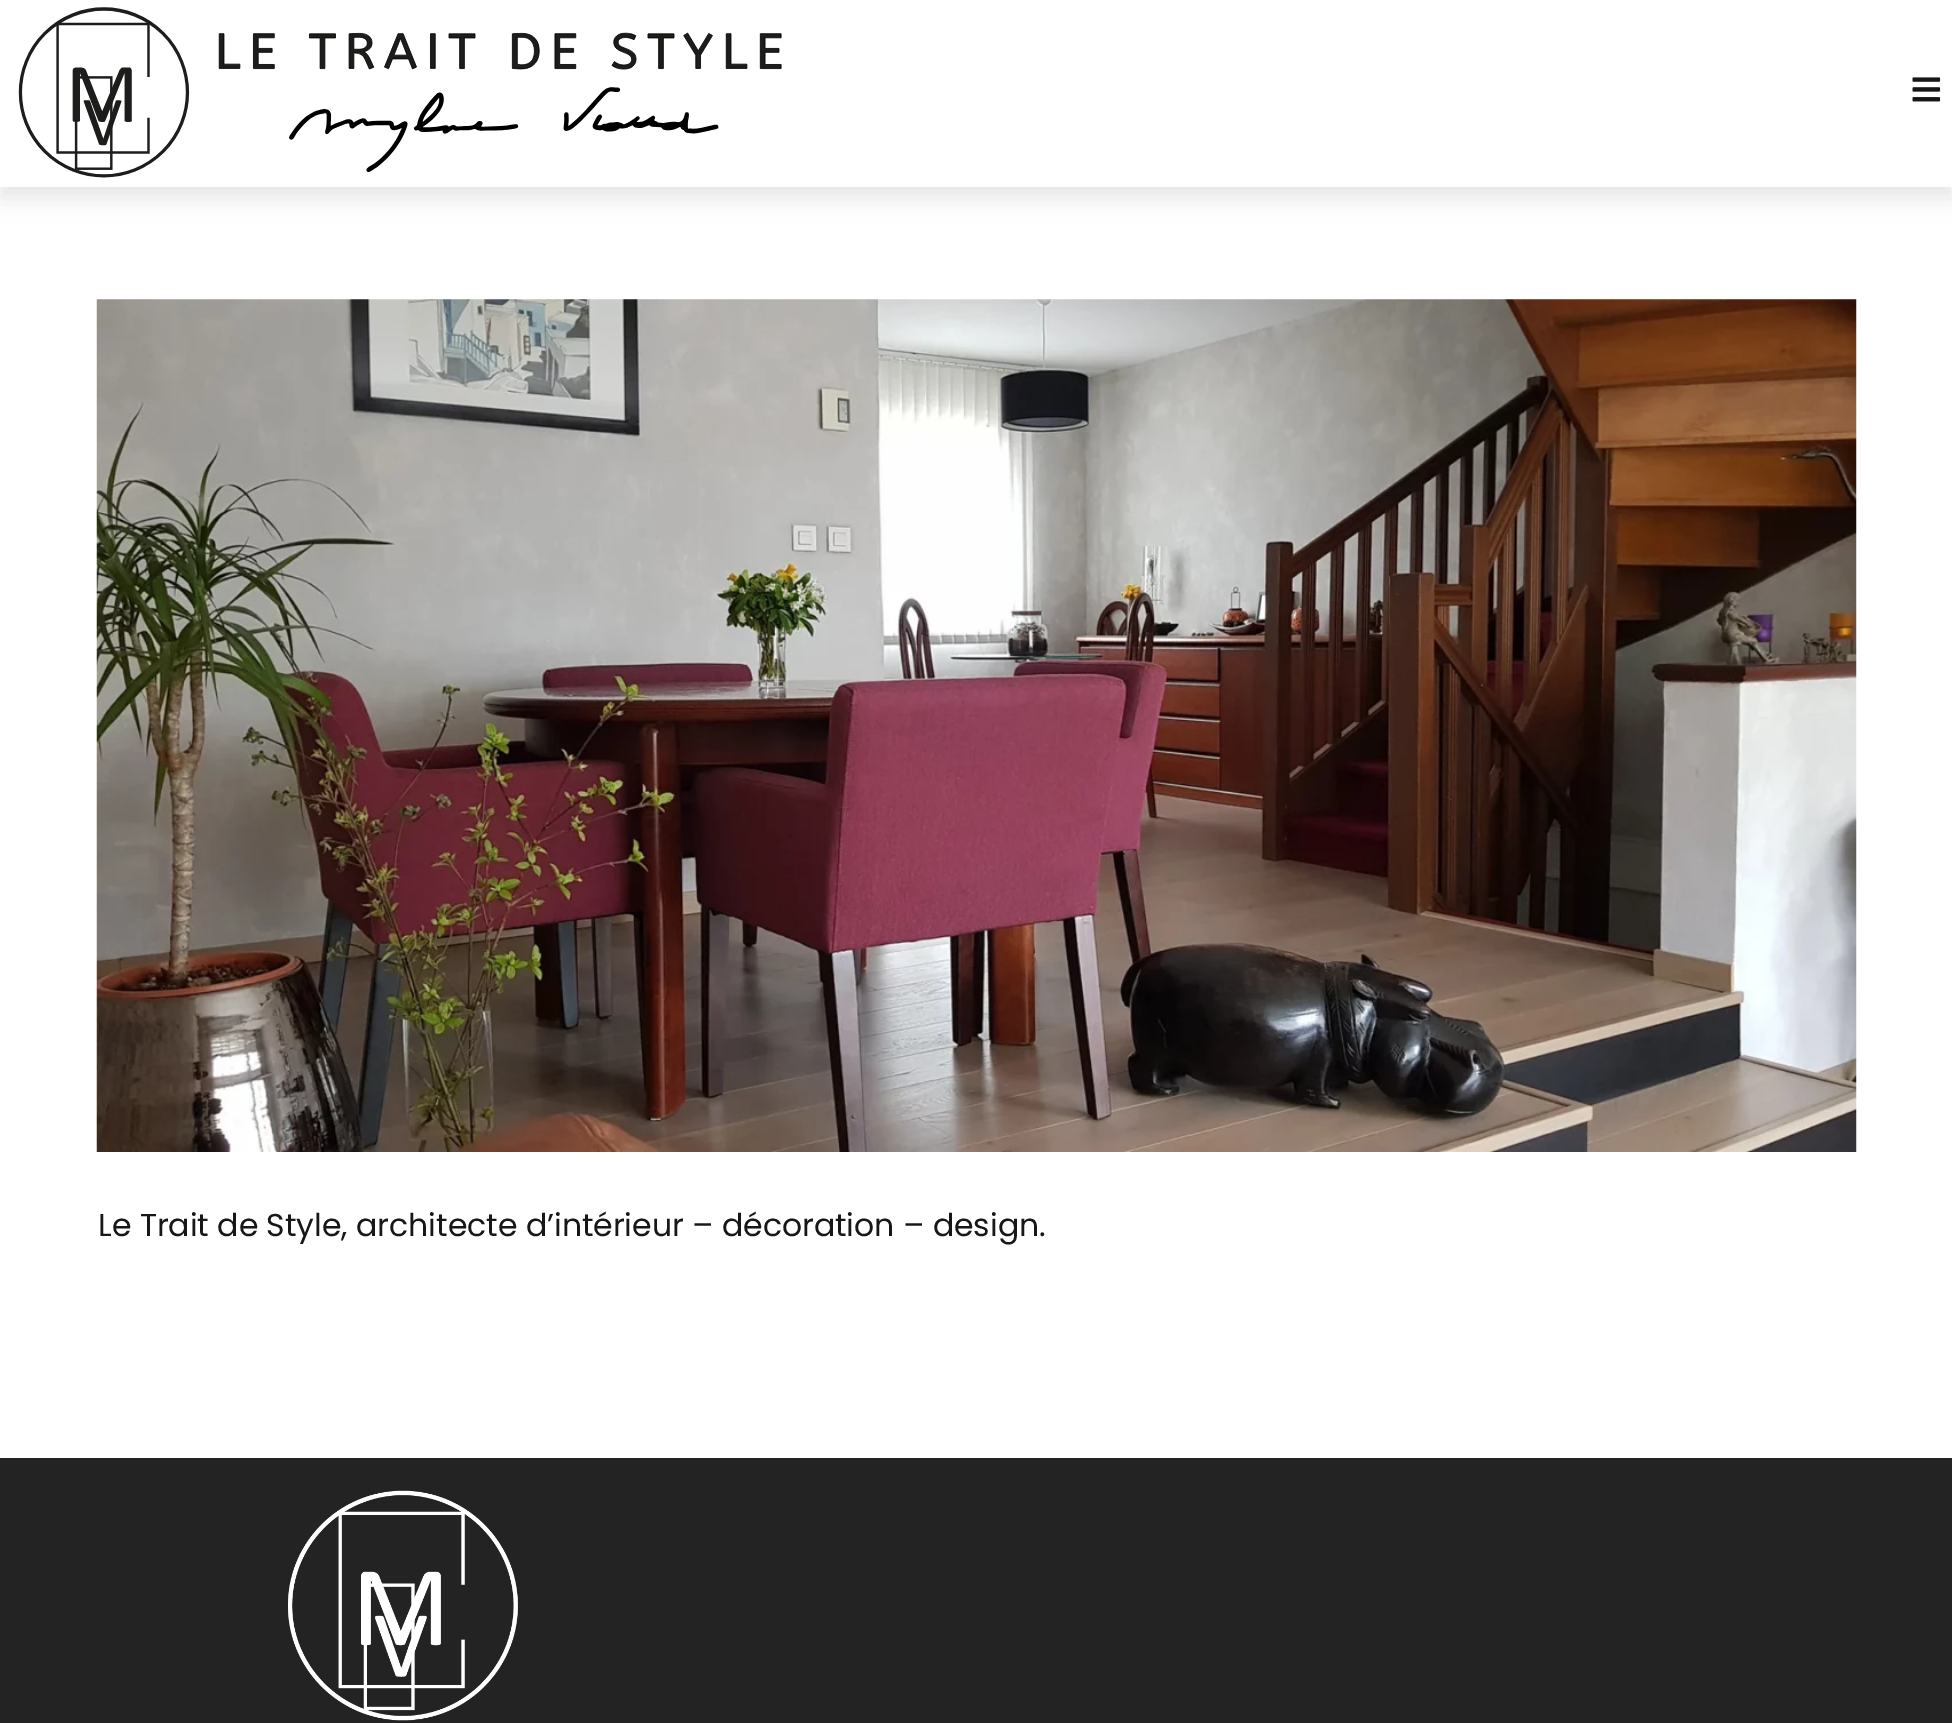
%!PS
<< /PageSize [1952 1723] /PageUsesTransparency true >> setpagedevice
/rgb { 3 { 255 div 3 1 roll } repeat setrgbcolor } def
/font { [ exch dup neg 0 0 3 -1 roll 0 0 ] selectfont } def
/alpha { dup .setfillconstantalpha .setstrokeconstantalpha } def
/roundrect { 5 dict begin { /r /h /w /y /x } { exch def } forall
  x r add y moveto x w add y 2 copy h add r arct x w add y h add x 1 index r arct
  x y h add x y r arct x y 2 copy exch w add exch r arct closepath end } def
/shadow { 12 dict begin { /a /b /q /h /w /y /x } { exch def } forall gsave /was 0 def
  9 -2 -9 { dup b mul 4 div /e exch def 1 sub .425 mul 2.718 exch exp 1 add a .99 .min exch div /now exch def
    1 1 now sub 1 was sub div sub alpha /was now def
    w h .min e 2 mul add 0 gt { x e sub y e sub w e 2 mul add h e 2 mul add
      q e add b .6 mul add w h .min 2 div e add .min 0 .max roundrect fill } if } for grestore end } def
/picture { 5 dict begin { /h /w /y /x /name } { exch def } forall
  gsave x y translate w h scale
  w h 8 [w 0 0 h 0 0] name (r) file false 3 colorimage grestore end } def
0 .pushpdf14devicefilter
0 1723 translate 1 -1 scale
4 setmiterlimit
255 255 255 rgb
0 0 1952 1723 rectfill
0 0 0 rgb
0 11 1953 187 0 11 0.1 shadow
255 255 255 rgb
0 0 1952 187 rectfill
(img/1.rgb) 18 7 764 171 picture
(img/2.rgb) 1912 77 29 25 picture
(img/3.rgb) 96 299 1761 853 picture
35 35 35 rgb
0 1458 1952 265 rectfill
(img/4.rgb) 288 1490 230 231 picture
/Poppins-Regular 31.5 font
23 23 23 rgb
98 1236 moveto (Le Trait de Style, architecte d’intérieur – décoration – design.) show
.poppdf14devicefilter showpage
